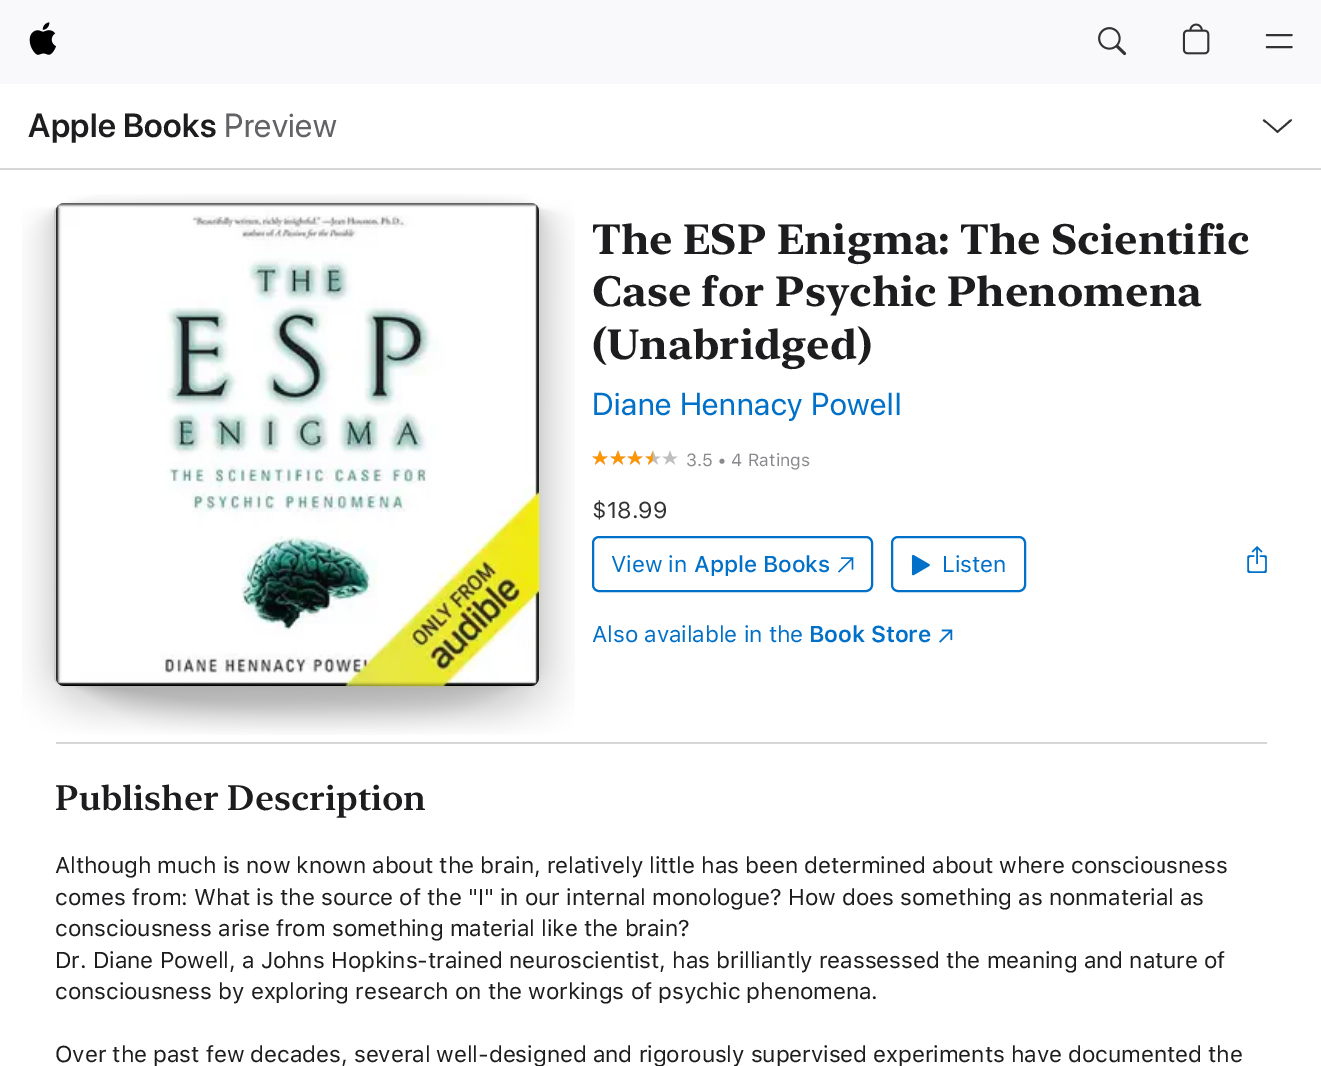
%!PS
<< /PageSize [1321 1066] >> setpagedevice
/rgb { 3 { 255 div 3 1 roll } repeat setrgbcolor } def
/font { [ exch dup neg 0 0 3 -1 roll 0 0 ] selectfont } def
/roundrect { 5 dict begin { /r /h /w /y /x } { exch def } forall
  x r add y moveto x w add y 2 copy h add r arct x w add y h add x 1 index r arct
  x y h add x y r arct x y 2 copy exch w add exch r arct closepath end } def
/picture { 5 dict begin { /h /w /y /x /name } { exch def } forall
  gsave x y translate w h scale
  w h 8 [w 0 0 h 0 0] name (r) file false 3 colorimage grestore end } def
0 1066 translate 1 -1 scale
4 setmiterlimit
255 255 255 rgb
0 0 1321 1066 rectfill
249 249 251 rgb
0 0 1321 84 rectfill
(img/1.rgb) 29 22 27 33 picture
(img/2.rgb) 1098 27 29 29 picture
(img/3.rgb) 1182 23 28 32 picture
50 50 50 rgb
2.1 setlinewidth
1 setlinecap
1 setlinejoin
1267 47 moveto 1291.5 47 lineto 1267 35 moveto 1291.5 35 lineto stroke
51 51 51 rgb
1264.5 119.5 moveto 1278.5 131.5 lineto 1277.5 133 lineto 1266 123 lineto 1265.5 123 1261.5 120.5 1263.5 119.5 curveto closepath fill
1276.5 131.5 moveto 1288 121.5 lineto 1288 121.5 1291 118 1292 120 curveto 1291.5 121 lineto 1277.5 133 lineto closepath fill
214 214 214 rgb
0 168 1321 2 rectfill
(img/4.rgb) 22 194 553 541 picture
(img/6.rgb) 59 206 482 482 picture
(img/5.rgb) 56 203 483 483 picture
(img/7.rgb) 56 203 483 483 picture
(img/8.rgb) 592 450 86 15 picture
(img/9.rgb) 592 450 61 15 picture
0 112 201 rgb
2 setlinewidth
0 setlinecap
0 setlinejoin
593 537 279 54 6 roundrect stroke
(img/10.rgb) 838 557 16 16 picture
892 537 133 54 6 roundrect stroke
(img/11.rgb) 911 554 19 22 picture
(img/12.rgb) 1247 546 20 27 picture
(img/13.rgb) 939 629 14 14 picture
214 214 214 rgb
56 742 1211 2 rectfill
/SFProDisplay-SemiBold 33.25 font
29 29 31 rgb
28 137 moveto 0.4 0 (Apple Books) ashow
/SFProDisplay-Regular 33.25 font
99 99 102 rgb
224 137 moveto 0.4 0 (Preview) ashow
/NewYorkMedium-Medium 42 font
29 29 31 rgb
[
  [(The ESP Enigma: The Scientific) 592 254]
  [(Case for Psychic Phenomena) 592 306]
  [(\(Unabridged\)) 592 359]
] { aload pop moveto show } forall
/SFProDisplay-Regular 31.5 font
0 112 201 rgb
592 415 moveto 0.8 0 (Diane Hennacy Powell) ashow
/SFProText-Regular 17.5 font
138 138 142 rgb
686 466 moveto 0.1 0 (3.5 • 4 Ratings) ashow
/SFProText-Regular 22.75 font
51 51 51 rgb
592 518 moveto -0.11 0 ($18.99) ashow
0 112 201 rgb
611 572 moveto -0.11 0 (View in) ashow
/SFProText-Medium 22.75 font
694 572 moveto -0.11 0 (Apple Books) ashow
/SFProText-Regular 22.75 font
942 572 moveto -0.11 0 (Listen) ashow
592 642 moveto -0.11 0 (Also available in the) ashow
/SFProText-SemiBold 22.75 font
809 642 moveto -0.11 0 (Book Store) ashow
/NewYorkMedium-SemiBold 35 font
29 29 31 rgb
55 810 moveto (Publisher Description) show
/SFProText-Regular 22.75 font
55 873 moveto -0.11 0 (Although much is now known about the brain, relatively little has been determined about where consciousness) ashow
55 905 moveto -0.11 0 (comes from: What is the source of the "I" in our internal monologue? How does something as nonmaterial as) ashow
55 936 moveto -0.11 0 (consciousness arise from something material like the brain?) ashow
55 968 moveto -0.11 0 (Dr. Diane Powell, a Johns Hopkins-trained neuroscientist, has brilliantly reassessed the meaning and nature of) ashow
55 999 moveto -0.11 0 (consciousness by exploring research on the workings of psychic phenomena.) ashow
55 1062 moveto -0.11 0 (Over the past few decades, several well-designed and rigorously supervised experiments have documented the) ashow
showpage
